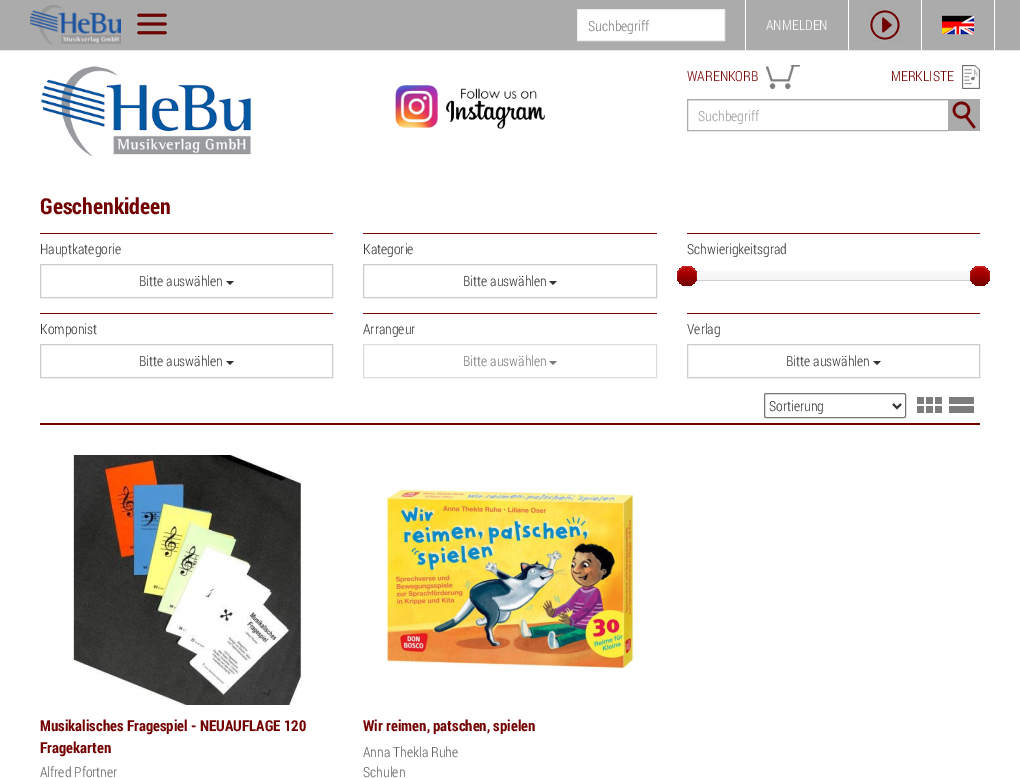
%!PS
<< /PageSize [1020 778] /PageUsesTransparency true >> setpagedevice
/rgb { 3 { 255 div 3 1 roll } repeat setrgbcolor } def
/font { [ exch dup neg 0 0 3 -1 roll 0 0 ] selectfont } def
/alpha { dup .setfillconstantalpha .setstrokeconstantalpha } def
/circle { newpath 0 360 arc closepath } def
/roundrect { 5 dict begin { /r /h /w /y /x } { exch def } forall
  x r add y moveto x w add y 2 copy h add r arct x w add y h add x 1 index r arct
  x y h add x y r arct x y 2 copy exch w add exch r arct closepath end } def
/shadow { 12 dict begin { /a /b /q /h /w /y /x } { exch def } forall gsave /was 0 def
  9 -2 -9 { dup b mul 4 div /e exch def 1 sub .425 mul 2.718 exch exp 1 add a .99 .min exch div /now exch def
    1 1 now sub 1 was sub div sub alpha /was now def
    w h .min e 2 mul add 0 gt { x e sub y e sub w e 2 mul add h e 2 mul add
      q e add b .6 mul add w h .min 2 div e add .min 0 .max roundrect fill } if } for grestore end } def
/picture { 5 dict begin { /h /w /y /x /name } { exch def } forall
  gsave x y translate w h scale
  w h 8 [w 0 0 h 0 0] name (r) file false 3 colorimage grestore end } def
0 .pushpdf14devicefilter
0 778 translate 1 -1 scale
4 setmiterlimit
255 255 255 rgb
0 0 1020 778 rectfill
171 171 171 rgb
0 0 1020 50 rectfill
231 231 231 rgb
0 50 1020 1 rectfill
(img/1.rgb) 30 5 91 40 picture
114 0 0 rgb
137 13 30 22 rectfill
(img/2.rgb) 136 8 32 32 picture
255 255 255 rgb
577.5 9.5 moveto 724.5 9.5 lineto 724.5 40.5 lineto 577.5 40.5 lineto closepath gsave fill grestore
238 238 238 rgb
stroke
[
  [745 0 1 50 255 255 255]
  [848 0 1 50 255 255 255]
  [869 9 32 32 114 0 0]
] { aload pop rgb rectfill } forall
(img/3.rgb) 869 9 32 32 picture
255 255 255 rgb
994 0 1 50 rectfill
921 0 1 50 rectfill
(img/4.rgb) 942 9 32 32 picture
(img/5.rgb) 41 66 210 92 picture
(img/6.rgb) 395 85 150 44 picture
(img/7.rgb) 766 65 34 24 picture
(img/8.rgb) 962 65 18 24 picture
236 236 236 rgb
688 100 260 1 rectfill
171 171 171 rgb
687.5 99.5 261 31 rectstroke
114 0 0 rgb
952 101 24 28 rectfill
(img/9.rgb) 948 99 32 32 picture
40 233 293 1 rectfill
204 204 204 rgb
40.5 264.5 292 33 rectstroke
51 51 51 rgb
226 281 moveto 234 281 lineto 230 285 lineto closepath fill
114 0 0 rgb
363 233 294 1 rectfill
204 204 204 rgb
363.5 264.5 293 33 rectstroke
51 51 51 rgb
549 281 moveto 557 281 lineto 553 285 lineto closepath fill
114 0 0 rgb
687 233 293 1 rectfill
gsave 695 271 moveto 972 271 lineto 972 280 lineto 695 280 lineto closepath clip newpath
<< /ShadingType 2 /ColorSpace /DeviceRGB /Coords [834 271 834 281] /Extend [true true] /Function << /FunctionType 2 /Domain [0 1] /C0 [0.976 0.976 0.976] /C1 [0.961 0.961 0.961] /N 1 >> >> shfill grestore
208 208 208 rgb
687 276 moveto 687 279 688 281 691 281 curveto 976 281 lineto 979 281 980 279 980 276 curveto 980 278 978 280 976 280 curveto 691 280 lineto 689 280 687 278 687 276 curveto closepath fill
0 0 0 rgb
677 267 20 20 10 1 0.05 shadow
gsave 687 276 10 circle clip newpath
<< /ShadingType 2 /ColorSpace /DeviceRGB /Coords [687 266 687 286] /Extend [true true] /Function << /FunctionType 2 /Domain [0 1] /C0 [0.761 0 0] /C1 [0.447 0 0] /N 1 >> >> shfill grestore
0.2 alpha
255 255 255 rgb
687 267 moveto 694.5 267 697.5 273 696.5 279 curveto 697 276.5 697 274 696 272 curveto 691.5 260.5 674 267 677.5 279 curveto 676.5 273 679.5 267 687 267 curveto closepath fill
1 alpha
0 0 0 rgb
970 267 20 20 10 1 0.05 shadow
gsave 980 276 10 circle clip newpath
<< /ShadingType 2 /ColorSpace /DeviceRGB /Coords [980 266 980 286] /Extend [true true] /Function << /FunctionType 2 /Domain [0 1] /C0 [0.761 0 0] /C1 [0.447 0 0] /N 1 >> >> shfill grestore
0.2 alpha
255 255 255 rgb
980 267 moveto 987.5 267 990.5 273 989.5 279 curveto 990 276.5 990 274 989 272 curveto 984.5 260.5 967 267 970.5 279 curveto 969.5 273 972.5 267 980 267 curveto closepath fill
1 alpha
114 0 0 rgb
40 313 293 1 rectfill
204 204 204 rgb
40.5 344.5 292 33 rectstroke
51 51 51 rgb
226 361 moveto 234 361 lineto 230 365 lineto closepath fill
114 0 0 rgb
363 313 294 1 rectfill
222 222 222 rgb
363.5 344.5 293 33 rectstroke
122 122 122 rgb
549 361 moveto 557 361 lineto 553 365 lineto closepath fill
114 0 0 rgb
687 313 293 1 rectfill
204 204 204 rgb
687.5 344.5 292 33 rectstroke
51 51 51 rgb
873 361 moveto 881 361 lineto 877 365 lineto closepath fill
118 118 118 rgb
764.5 393.5 141 24 1.5 roundrect stroke
51 51 51 rgb
2 setlinewidth
893 404 moveto 897 408 lineto 901 404 lineto stroke
[
  [917 397 7 7 124 124 124]
  [926 397 7 7 124 124 124]
  [935 397 7 7 124 124 124]
  [917 406 7 7 124 124 124]
  [926 406 7 7 124 124 124]
  [935 406 7 7 124 124 124]
  [949 397 25 7 124 124 124]
  [949 406 25 7 124 124 124]
  [40 423 940 2 114 0 0]
] { aload pop rgb rectfill } forall
(img/10.rgb) 72 455 230 250 picture
(img/11.rgb) 385 488 250 182 picture
/RobotoCondensed-Light 14 font
122 122 122 rgb
588 31 moveto (Suchbegriff) show
255 255 255 rgb
766 30 moveto (ANMELDEN) show
114 0 0 rgb
687 81 moveto (WARENKORB) show
891 81 moveto (MERKLISTE) show
153 153 153 rgb
698 121 moveto (Suchbegriff) show
/Roboto-Bold 22 font
114 0 0 rgb
40 214 moveto (Geschenkideen) show
/RobotoCondensed-Light 14 font
51 51 51 rgb
[
  [(Hauptkategorie) 40 254]
  [(Bitte auswählen) 139 286]
  [(Kategorie) 363 254]
  [(Bitte auswählen) 463 286]
  [(Schwierigkeitsgrad) 687 254]
  [(Komponist) 40 334]
  [(Bitte auswählen) 139 366]
  [(Arrangeur) 363 334]
] { aload pop moveto show } forall
122 122 122 rgb
463 366 moveto (Bitte auswählen) show
51 51 51 rgb
[
  [(Verlag) 687 334]
  [(Bitte auswählen) 786 366]
  [(Sortierung) 769 411]
] { aload pop moveto show } forall
/Roboto-Bold 15 font
114 0 0 rgb
40 731 moveto (Musikalisches Fragespiel - NEUAUFLAGE 120) show
40 753 moveto (Fragekarten) show
/RobotoCondensed-Light 14 font
96 96 96 rgb
40 777 moveto (Alfred Pfortner) show
/Roboto-Bold 15 font
114 0 0 rgb
363 731 moveto (Wir reimen, patschen, spielen) show
/RobotoCondensed-Light 14 font
96 96 96 rgb
363 757 moveto (Anna Thekla Ruhe) show
363 777 moveto (Schulen) show
.poppdf14devicefilter showpage
